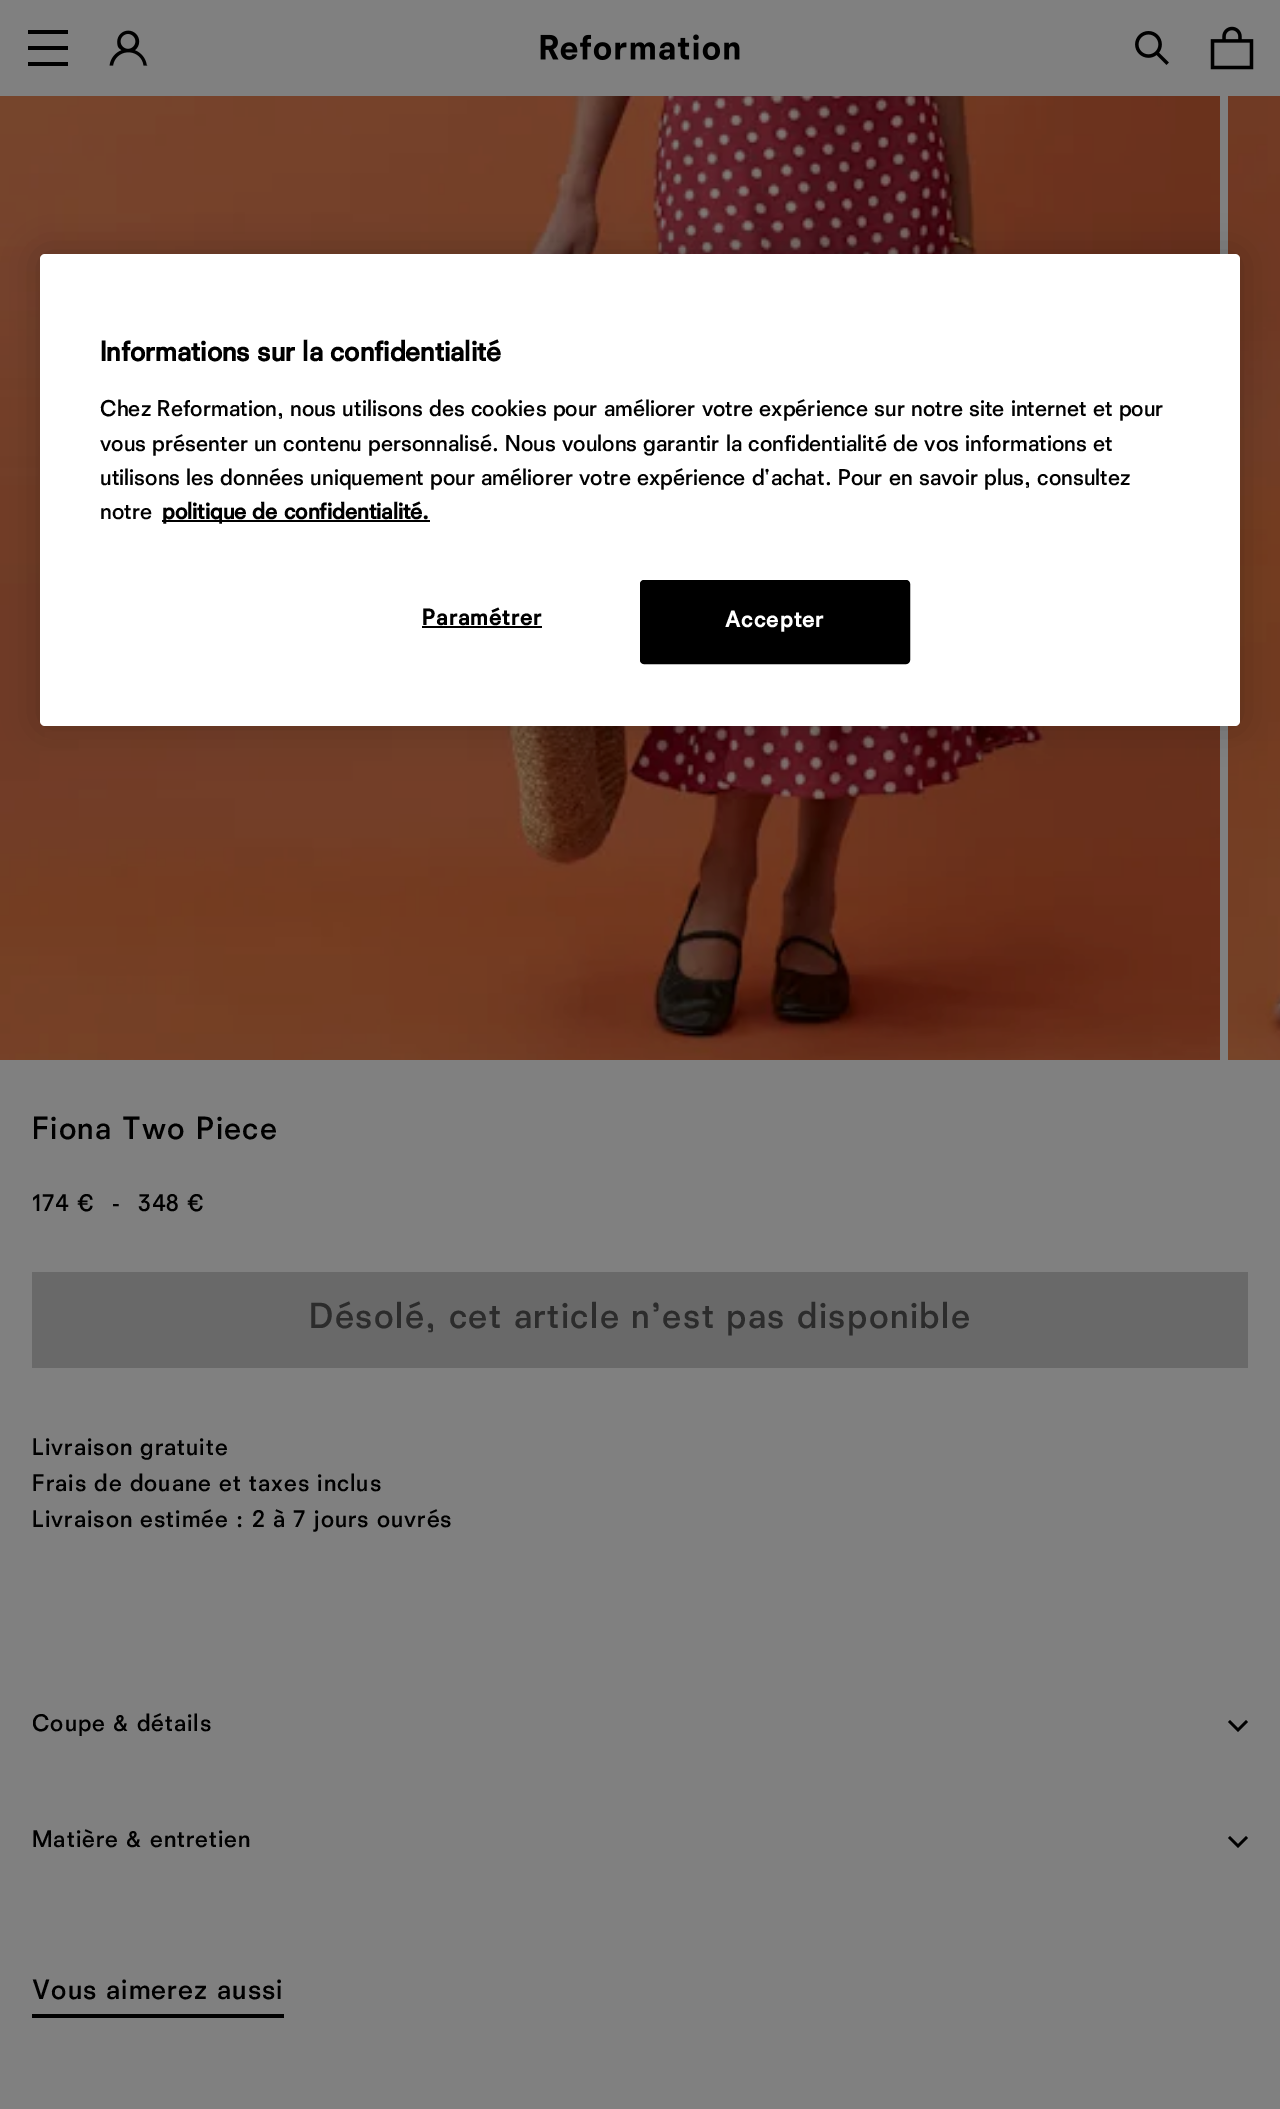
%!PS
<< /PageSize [1280 2109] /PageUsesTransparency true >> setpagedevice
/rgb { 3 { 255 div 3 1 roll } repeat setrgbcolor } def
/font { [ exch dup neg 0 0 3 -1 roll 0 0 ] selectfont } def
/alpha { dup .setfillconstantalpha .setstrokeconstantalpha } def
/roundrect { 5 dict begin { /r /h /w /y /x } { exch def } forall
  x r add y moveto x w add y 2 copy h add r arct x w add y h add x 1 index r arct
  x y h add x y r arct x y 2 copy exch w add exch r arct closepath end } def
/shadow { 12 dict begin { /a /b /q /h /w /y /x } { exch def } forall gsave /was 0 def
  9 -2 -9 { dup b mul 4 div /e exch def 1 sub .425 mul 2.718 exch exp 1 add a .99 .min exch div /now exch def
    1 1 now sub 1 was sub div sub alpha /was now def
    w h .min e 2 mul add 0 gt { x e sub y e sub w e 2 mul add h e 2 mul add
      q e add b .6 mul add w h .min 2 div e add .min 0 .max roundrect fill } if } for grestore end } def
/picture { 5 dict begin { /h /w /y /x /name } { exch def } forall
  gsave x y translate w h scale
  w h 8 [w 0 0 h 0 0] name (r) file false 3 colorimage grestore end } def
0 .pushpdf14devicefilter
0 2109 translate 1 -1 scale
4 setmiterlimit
128 128 128 rgb
0 0 1280 2109 rectfill
(img/5.rgb) 0 96 1220 964 picture
(img/6.rgb) 1228 96 52 964 picture
0 0 0 rgb
40 254 1200 472 5 18 0.2 shadow
255 255 255 rgb
40 254 1200 472 5 roundrect fill
0 0 0 rgb
162 520 268 2 rectfill
422 626 120 2 rectfill
641 581 268 82 3 roundrect gsave fill grestore
2 setlinewidth
stroke
[
  [28 30 40 4 0 0 0]
  [28 46 40 4 0 0 0]
  [28 62 40 4 0 0 0]
] { aload pop rgb rectfill } forall
(img/1.rgb) 109 30 39 36 picture
(img/2.rgb) 540 34 200 26 picture
(img/3.rgb) 1135 31 34 34 picture
(img/4.rgb) 1210 26 44 44 picture
105 105 105 rgb
32 1272 1216 96 rectfill
0 0 0 rgb
1238 1732 moveto 1228 1722 lineto 1230 1720 lineto 1238 1728 lineto 1246 1720 lineto 1248 1722 lineto closepath fill
1238 1848 moveto 1228 1838 lineto 1230 1836 lineto 1238 1844 lineto 1246 1836 lineto 1248 1838 lineto closepath fill
32 2014 252 4 rectfill
/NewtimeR-Bold 28 font
100 361 moveto (Informations sur la confidentialité) show
/NewtimeR-Medium 22.75 font
[
  [(Chez Reformation, nous utilisons des cookies pour améliorer votre expérience sur notre site internet et pour) 100 416]
  [(vous présenter un contenu personnalisé. Nous voulons garantir la confidentialité de vos informations et) 100 451]
  [(utilisons les données uniquement pour améliorer votre expérience d'achat. Pour en savoir plus, consultez) 100 485]
  [(notre) 100 519]
] { aload pop moveto show } forall
/NewtimeR-Bold 22.75 font
162 519 moveto (politique de confidentialité.) show
422 625 moveto 1.1 0 (Paramétrer) ashow
255 255 255 rgb
725 627 moveto 1.1 0 (Accepter) ashow
/NewtimeR-Medium 32 font
0 0 0 rgb
32 1139 moveto 1.25 0 (Fiona Two Piece) ashow
/NewtimeR-Medium 24 font
32 1211 moveto 0.95 0 (174 €) ashow
111 1211 moveto 0.95 0 (-) ashow
138 1211 moveto 0.95 0 (348 €) ashow
/NewtimeR-Medium 36 font
44 44 44 rgb
309 1328 moveto 1.45 0 (Désolé, cet article n’est pas disponible) ashow
/NewtimeR-Medium 24 font
0 0 0 rgb
32 1455 moveto 0.95 0 (Livraison gratuite) ashow
32 1491 moveto 0.95 0 (Frais de douane et taxes inclus) ashow
32 1527 moveto 0.95 0 (Livraison estimée : 2 à 7 jours ouvrés) ashow
32 1731 moveto 0.95 0 (Coupe & détails) ashow
32 1847 moveto 0.95 0 (Matière & entretien) ashow
/NewtimeR-Medium 28 font
32 1999 moveto 1.1 0 (Vous aimerez aussi) ashow
.poppdf14devicefilter showpage
